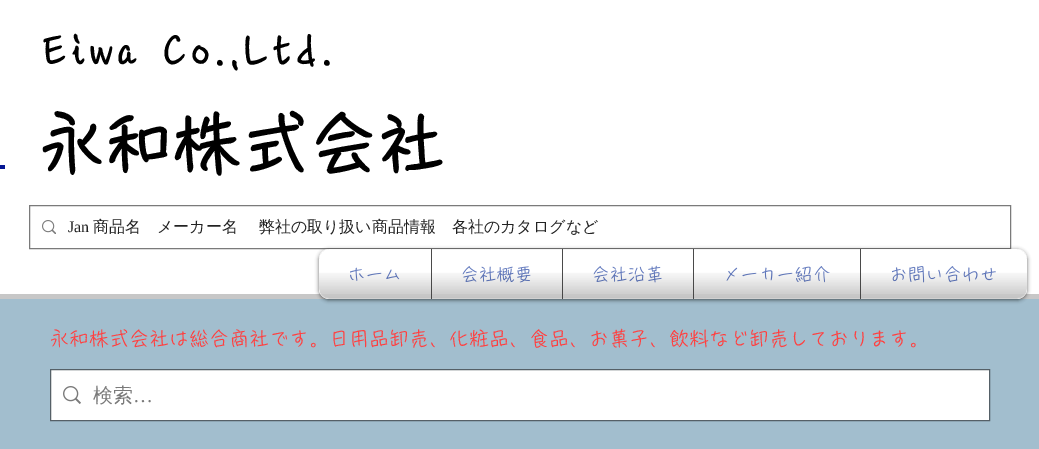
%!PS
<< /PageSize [1039 449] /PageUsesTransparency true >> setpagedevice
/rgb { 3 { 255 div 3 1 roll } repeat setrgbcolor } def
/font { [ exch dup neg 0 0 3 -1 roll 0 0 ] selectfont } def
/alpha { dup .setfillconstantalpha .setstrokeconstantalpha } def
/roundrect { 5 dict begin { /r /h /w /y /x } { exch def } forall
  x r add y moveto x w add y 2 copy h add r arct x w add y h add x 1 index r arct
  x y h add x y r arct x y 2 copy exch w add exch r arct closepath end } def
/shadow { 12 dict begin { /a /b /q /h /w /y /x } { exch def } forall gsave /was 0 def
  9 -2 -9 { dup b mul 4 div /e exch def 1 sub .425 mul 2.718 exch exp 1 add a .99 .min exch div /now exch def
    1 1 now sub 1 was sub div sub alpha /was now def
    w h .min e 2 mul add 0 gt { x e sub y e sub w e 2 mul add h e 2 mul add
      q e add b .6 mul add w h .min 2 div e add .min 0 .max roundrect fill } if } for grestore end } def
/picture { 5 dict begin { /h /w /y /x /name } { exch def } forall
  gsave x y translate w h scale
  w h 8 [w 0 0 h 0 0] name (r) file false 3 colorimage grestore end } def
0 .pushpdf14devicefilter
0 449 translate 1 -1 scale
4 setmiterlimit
162 190 206 rgb
0 0 1039 449 rectfill
[
  [0 0 1039 294 255 255 255]
  [0 294 1039 5 199 199 199]
  [0 165 5 4 5 23 147]
] { aload pop rgb rectfill } forall
122 122 122 rgb
29.5 205.5 981 43 rectstroke
(img/1.rgb) 42 220 14 14 picture
gsave
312 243 moveto 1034 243 lineto 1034 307 lineto 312 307 lineto closepath 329 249 moveto 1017 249 lineto 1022.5 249 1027 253.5 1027 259 curveto 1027 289 lineto 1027 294.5 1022.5 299 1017 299 curveto 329 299 lineto 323.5 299 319 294.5 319 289 curveto 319 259 lineto 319 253.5 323.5 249 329 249 curveto closepath eoclip newpath
0 0 0 rgb
319 250 708 50 10 2 0.6 shadow
grestore
0.65 alpha
255 255 255 rgb
319 249 708 50 10 roundrect fill
1 alpha
(img/2.rgb) 319 272 708 26 picture
0.65 alpha
329 249 moveto 431 249 lineto 431 299 lineto 329 299 lineto 323.5 299 319 294.5 319 289 curveto 319 259 lineto 319 253.5 323.5 249 329 249 curveto closepath fill
[
  [431 272 131 27 255 255 255]
] { aload pop rgb rectfill } forall
0.82 alpha
[
  [431 249 1 50 34 34 34]
] { aload pop rgb rectfill } forall
0.65 alpha
[
  [562 272 131 27 255 255 255]
] { aload pop rgb rectfill } forall
0.82 alpha
[
  [562 249 1 50 34 34 34]
] { aload pop rgb rectfill } forall
0.65 alpha
[
  [693 272 167 27 255 255 255]
] { aload pop rgb rectfill } forall
0.82 alpha
[
  [693 249 1 50 34 34 34]
] { aload pop rgb rectfill } forall
0.65 alpha
255 255 255 rgb
860 249 moveto 1017 249 lineto 1022.5 249 1027 253.5 1027 259 curveto 1027 289 lineto 1027 294.5 1022.5 299 1017 299 curveto 860 299 lineto closepath fill
0.82 alpha
34 34 34 rgb
860 249 1 50 rectfill
1 alpha
255 255 255 rgb
50.5 369.5 moveto 989.5 369.5 lineto 989.5 420.5 lineto 50.5 420.5 lineto closepath gsave fill grestore
85 96 103 rgb
stroke
(img/13.rgb) 63 386 18 18 picture
/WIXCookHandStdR-Bold 40 font
0 0 0 rgb
43 67 moveto 6 0 (Eiwa Co.,Ltd.) ashow
/WIXCookHandStdR-Bold 68 font
36 170 moveto (永和株式会社) show
/LiberationSerif-Regular 16 font
34 34 34 rgb
68 232 moveto (Jan) show
/WenQuanYiZenHei-Medium 16 font
93 232 moveto (商品名　メーカー名 　弊社の取り扱い商品情報　各社のカタログなど) show
/WIXCookHandStdR-Regular 18 font
86 111 184 rgb
348 281 moveto (ホーム) show
(img/3.rgb) 350 268 49 12 picture
(img/4.rgb) 319 273 112 26 picture
461 281 moveto (会社概要) show
(img/5.rgb) 463 266 67 15 picture
(img/6.rgb) 432 273 130 26 picture
592 281 moveto (会社沿革) show
(img/7.rgb) 594 266 67 15 picture
(img/8.rgb) 563 273 130 26 picture
723 281 moveto (メーカー紹介) show
(img/9.rgb) 727 266 102 15 picture
(img/10.rgb) 694 273 166 26 picture
890 281 moveto (お問い合わせ) show
(img/11.rgb) 892 266 103 15 picture
(img/12.rgb) 861 273 166 26 picture
/WIXCookHandStdR-Regular 20 font
255 64 64 rgb
49 346 moveto (永和株式会社は総合商社です。日用品卸売、化粧品、食品、お菓子、飲料など卸売しております。) show
/WenQuanYiZenHei-Medium 20 font
122 122 122 rgb
93 402 moveto (検索) show
/LiberationSerif-Regular 20 font
133 402 moveto (…) show
.poppdf14devicefilter showpage
